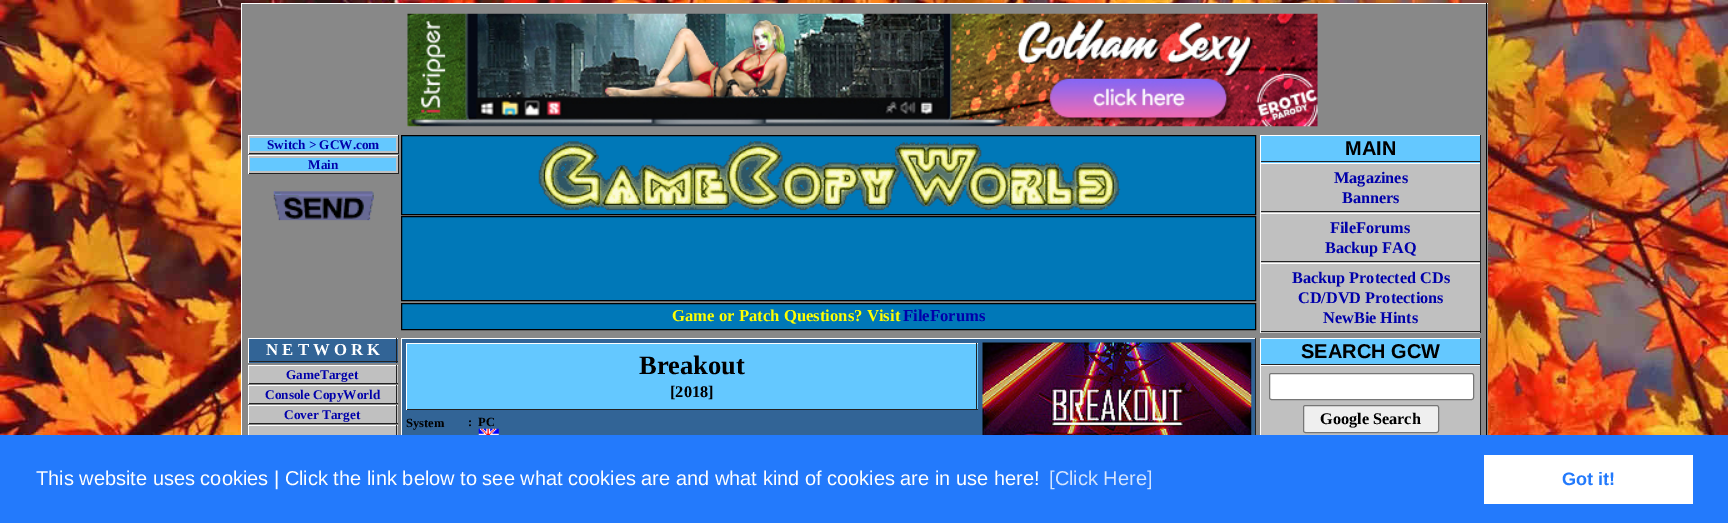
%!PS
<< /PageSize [1728 523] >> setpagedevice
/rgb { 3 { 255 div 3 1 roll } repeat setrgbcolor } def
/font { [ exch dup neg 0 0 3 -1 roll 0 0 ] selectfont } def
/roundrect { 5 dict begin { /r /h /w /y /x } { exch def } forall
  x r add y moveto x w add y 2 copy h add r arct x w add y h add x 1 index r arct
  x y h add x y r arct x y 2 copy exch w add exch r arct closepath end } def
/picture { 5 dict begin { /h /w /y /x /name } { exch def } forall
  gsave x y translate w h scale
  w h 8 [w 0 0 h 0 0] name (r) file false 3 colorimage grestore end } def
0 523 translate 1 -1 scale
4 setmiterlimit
255 255 255 rgb
0 0 1728 523 rectfill
(img/1.rgb) 0 0 1728 435 picture
[
  [242 4 1246 431 136 136 136]
  [241 3 1247 1 255 255 255]
  [1486 3 1 432 0 0 0]
  [241 3 1 432 255 255 255]
] { aload pop rgb rectfill } forall
(img/2.rgb) 407 13 911 114 picture
[
  [249 136 149 17 192 192 192]
  [248 135 151 1 255 255 255]
  [398 135 1 19 34 34 34]
  [248 153 151 1 34 34 34]
  [248 135 1 19 255 255 255]
  [250 138 146 13 100 200 255]
  [249 156 149 17 192 192 192]
  [248 155 151 1 255 255 255]
  [398 155 1 19 34 34 34]
  [248 173 151 1 34 34 34]
  [248 155 1 19 255 255 255]
  [250 158 146 13 100 200 255]
] { aload pop rgb rectfill } forall
(img/3.rgb) 273 191 101 30 picture
0 120 184 rgb
401.5 135.5 moveto 1255.5 135.5 lineto 1255.5 214.5 lineto 401.5 214.5 lineto closepath gsave fill grestore
0 0 0 rgb
stroke
(img/4.rgb) 538 141 583 70 picture
0 120 184 rgb
401.5 216.5 moveto 1255.5 216.5 lineto 1255.5 300.5 lineto 401.5 300.5 lineto closepath gsave fill grestore
0 0 0 rgb
stroke
0 120 184 rgb
401.5 303.5 moveto 1255.5 303.5 lineto 1255.5 329.5 lineto 401.5 329.5 lineto closepath gsave fill grestore
0 0 0 rgb
stroke
[
  [1261 136 219 27 100 200 255]
  [1260 135 221 1 255 255 255]
  [1480 135 1 28 34 34 34]
  [1260 161 221 1 34 34 34]
  [1260 135 1 28 255 255 255]
  [1261 164 219 49 192 192 192]
  [1260 163 221 1 255 255 255]
  [1480 163 1 50 34 34 34]
  [1260 211 221 1 34 34 34]
  [1260 163 1 50 255 255 255]
  [1261 214 219 49 192 192 192]
  [1260 213 221 1 255 255 255]
  [1480 213 1 50 34 34 34]
  [1260 261 221 1 34 34 34]
  [1260 213 1 50 255 255 255]
  [1261 264 219 69 192 192 192]
  [1260 263 221 1 255 255 255]
  [1480 263 1 70 34 34 34]
  [1260 331 221 1 34 34 34]
  [1260 263 1 70 255 255 255]
  [249 339 149 24 50 100 150]
  [248 338 150 1 255 255 255]
  [396 338 1 25 34 34 34]
  [248 361 150 1 34 34 34]
  [248 338 1 25 255 255 255]
  [249 366 149 17 192 192 192]
  [248 365 150 1 255 255 255]
  [396 365 1 19 34 34 34]
  [248 383 150 1 34 34 34]
  [248 365 1 19 255 255 255]
  [249 386 149 17 192 192 192]
  [248 385 150 1 255 255 255]
  [396 385 1 19 34 34 34]
  [248 403 150 1 34 34 34]
  [248 385 1 19 255 255 255]
  [249 406 149 17 192 192 192]
  [248 405 150 1 255 255 255]
  [396 405 1 19 34 34 34]
  [248 423 150 1 34 34 34]
  [248 405 1 19 255 255 255]
  [249 426 149 9 192 192 192]
  [248 425 150 1 255 255 255]
  [396 425 1 10 34 34 34]
  [248 425 1 10 255 255 255]
  [402 339 853 96 50 100 150]
  [401 338 855 1 255 255 255]
  [1255 338 1 97 34 34 34]
  [401 338 1 97 255 255 255]
  [407 344 571 65 100 200 255]
  [406 343 572 1 255 255 255]
  [976 343 1 67 34 34 34]
  [406 409 572 1 34 34 34]
  [406 343 1 67 255 255 255]
] { aload pop rgb rectfill } forall
(img/5.rgb) 982 342 270 93 picture
(img/6.rgb) 478 428 21 7 picture
[
  [1261 339 219 25 100 200 255]
  [1260 338 221 1 255 255 255]
  [1480 338 1 27 34 34 34]
  [1260 364 221 1 34 34 34]
  [1260 338 1 27 255 255 255]
  [1261 366 219 69 192 192 192]
  [1260 365 221 1 255 255 255]
  [1480 365 1 73 34 34 34]
  [1260 365 1 73 255 255 255]
] { aload pop rgb rectfill } forall
1269.5 373.5 204 26 2 roundrect gsave fill grestore
118 118 118 rgb
stroke
239 239 239 rgb
1303.5 405.5 135 27 2 roundrect gsave fill grestore
118 118 118 rgb
stroke
35 122 252 rgb
0 435 1728 88 rectfill
255 255 255 rgb
1484 455 209 49 rectfill
/LiberationSerif-Bold 13.25 font
0 0 170 rgb
267 149 moveto (Switch > GCW.com) show
308 169 moveto (Main) show
/LiberationSerif-Bold 16.7 font
255 255 0 rgb
672 321 moveto (Game or Patch Questions? Visit) show
0 0 170 rgb
903 321 moveto (FileForums) show
/LiberationSans-Bold 20 font
0 0 0 rgb
1345 155 moveto (MAIN) show
/LiberationSerif-Bold 16.25 font
0 0 170 rgb
[
  [(Magazines) 1334 183]
  [(Banners) 1342 203]
  [(FileForums) 1330 233]
  [(Backup FAQ) 1325 253]
  [(Backup Protected CDs) 1292 283]
  [(CD/DVD Protections) 1298 303]
  [(NewBie Hints) 1323 323]
] { aload pop moveto show } forall
/LiberationSerif-Bold 16.7 font
255 255 255 rgb
266 355 moveto (N E T W O R K) show
/LiberationSerif-Bold 13.25 font
0 0 170 rgb
[
  [(GameTarget) 286 379]
  [(Console CopyWorld) 265 399]
  [(Cover Target) 284 419]
] { aload pop moveto show } forall
/LiberationSerif-Bold 26.5 font
0 0 0 rgb
639 374 moveto (Breakout) show
/LiberationSerif-Bold 16.25 font
670 397 moveto ([2018]) show
/LiberationSerif-Bold 12.5 font
406 427 moveto (System) show
468 426 moveto (:  PC) show
/LiberationSans-Bold 20 font
1301 358 moveto (SEARCH GCW) show
/LiberationSerif-Bold 16.25 font
1320 424 moveto (Google Search) show
/LiberationSans-Regular 20 font
255 255 255 rgb
36 485 moveto (This website uses cookies | Click the link below to see what cookies are and what kind of cookies are in use here!) show
211 228 254 rgb
1049 485 moveto ([Click Here]) show
/LiberationSans-Bold 18 font
35 122 252 rgb
1562 485 moveto (Got it!) show
showpage
